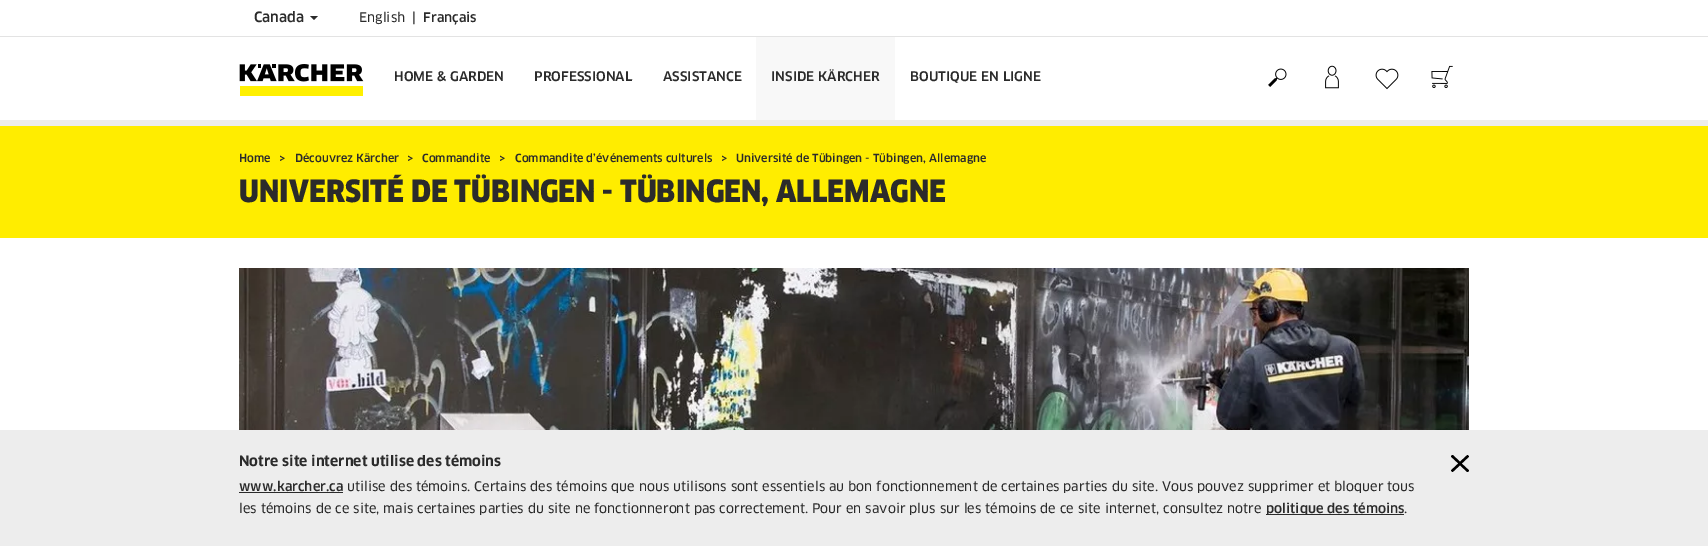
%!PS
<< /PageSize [1708 546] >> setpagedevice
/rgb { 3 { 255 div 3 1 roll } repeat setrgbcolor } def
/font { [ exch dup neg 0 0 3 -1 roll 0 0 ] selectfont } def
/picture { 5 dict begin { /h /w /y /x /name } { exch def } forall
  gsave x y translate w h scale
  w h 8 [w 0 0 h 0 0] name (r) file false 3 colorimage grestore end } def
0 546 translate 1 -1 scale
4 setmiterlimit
255 255 255 rgb
0 0 1708 546 rectfill
227 227 227 rgb
0 36 1708 1 rectfill
43 43 43 rgb
310 16 moveto 318 16 lineto 314 20 lineto closepath fill
237 237 237 rgb
0 120 1708 6 rectfill
(img/1.rgb) 239 64 125 32 picture
248 248 248 rgb
756 37 139 83 rectfill
(img/2.rgb) 1268 68 19 19 picture
(img/3.rgb) 1325 65 14 24 picture
(img/4.rgb) 1375 68 24 22 picture
(img/5.rgb) 1431 65 22 23 picture
255 237 0 rgb
0 126 1708 112 rectfill
(img/6.rgb) 239 268 1230 162 picture
237 237 237 rgb
0 430 1708 116 rectfill
(img/7.rgb) 1451 455 18 17 picture
43 43 43 rgb
239 492 104 1 rectfill
1266 514 138 1 rectfill
/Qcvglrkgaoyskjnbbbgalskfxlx-Medium 14 font
254 22 moveto (Canada) show
/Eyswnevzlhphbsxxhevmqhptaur-Regular 13 font
359 22 moveto (English) show
/Qcvglrkgaoyskjnbbbgalskfxlx-Medium 13 font
[
  [(|) 412 22]
  [(Français) 423 22]
  [(HOME & GARDEN) 394 81]
  [(PROFESSIONAL) 534 81]
  [(ASSISTANCE) 663 81]
  [(INSIDE KÄRCHER) 771 81]
  [(BOUTIQUE EN LIGNE) 910 81]
] { aload pop moveto show } forall
/Qcvglrkgaoyskjnbbbgalskfxlx-Medium 11 font
[
  [(Home) 239 162]
  [(>) 279 162]
  [(Découvrez Kärcher) 295 162]
  [(>) 407 162]
  [(Commandite) 422 162]
  [(>) 499 162]
  [(Commandite d’événements culturels) 515 162]
  [(>) 721 162]
  [(Université de Tübingen - Tübingen, Allemagne) 736 162]
] { aload pop moveto show } forall
/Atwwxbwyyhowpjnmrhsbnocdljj-Black 30 font
239 202 moveto (UNIVERSITÉ DE TÜBINGEN - TÜBINGEN, ALLEMAGNE) show
/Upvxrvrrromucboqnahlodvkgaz-Bold 14 font
239 466 moveto (Notre site internet utilise des témoins) show
/Qcvglrkgaoyskjnbbbgalskfxlx-Medium 13 font
239 491 moveto (www.karcher.ca) show
/Eyswnevzlhphbsxxhevmqhptaur-Regular 13 font
347 491 moveto (utilise des témoins. Certains des témoins que nous utilisons sont essentiels au bon fonctionnement de certaines parties du site. Vous pouvez supprimer et bloquer tous) show
239 513 moveto (les témoins de ce site, mais certaines parties du site ne fonctionneront pas correctement. Pour en savoir plus sur les témoins de ce site internet, consultez notre) show
/Qcvglrkgaoyskjnbbbgalskfxlx-Medium 13 font
1266 513 moveto (politique des témoins) show
/Eyswnevzlhphbsxxhevmqhptaur-Regular 13 font
1404 513 moveto (.) show
showpage
